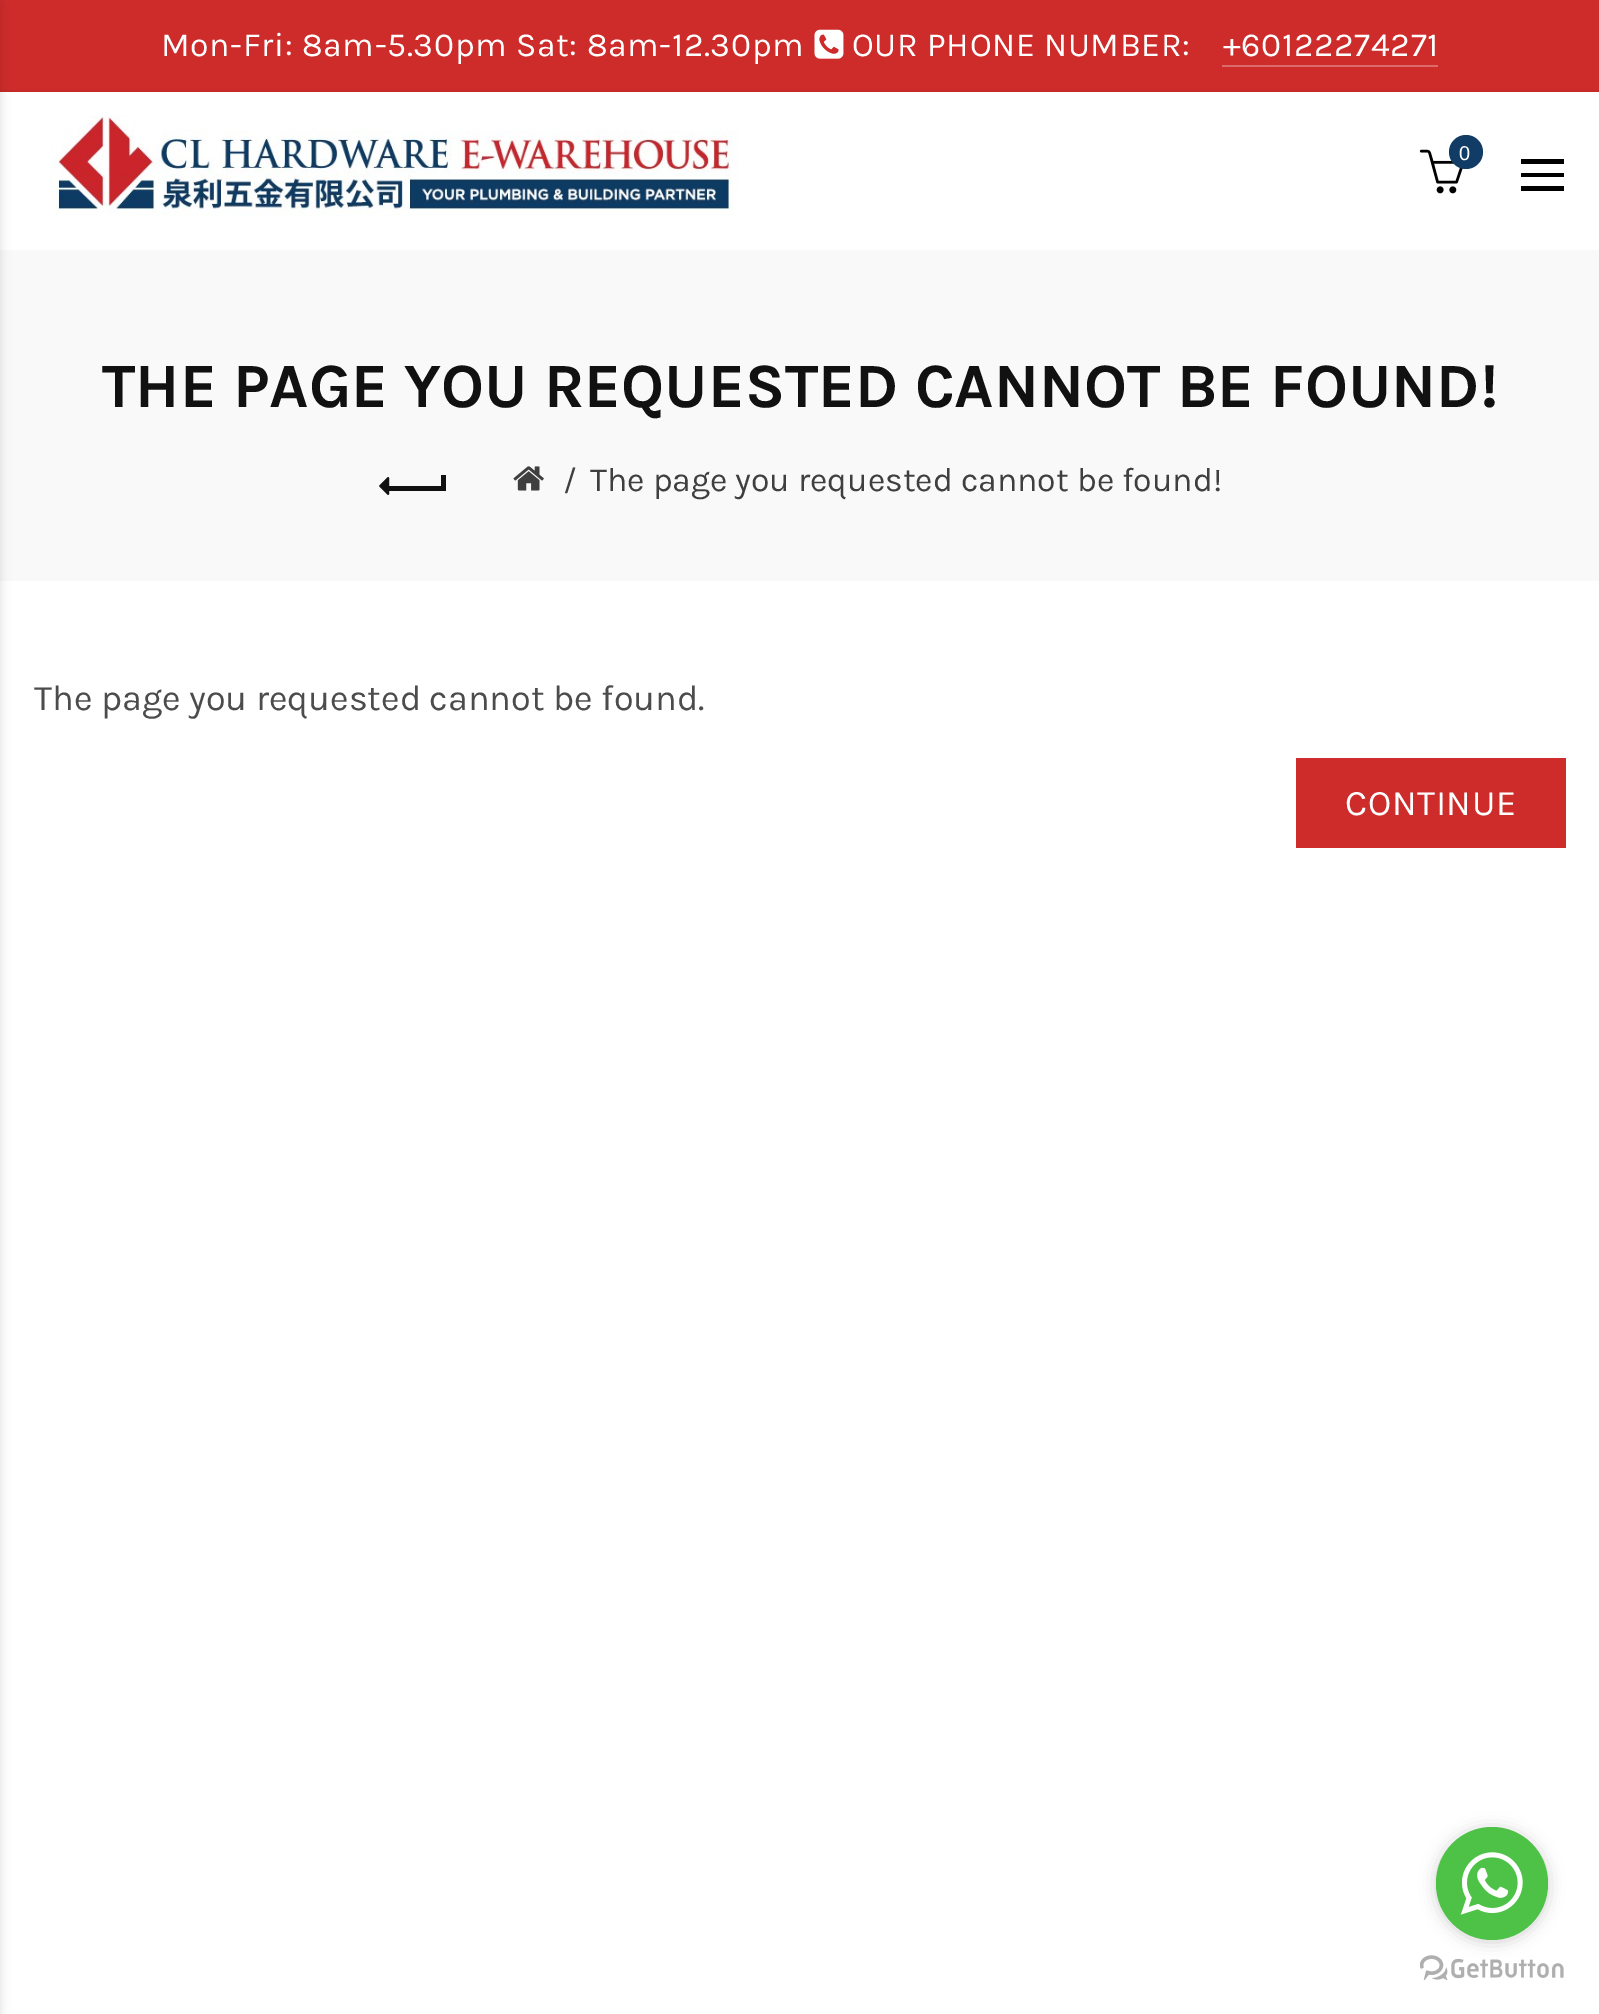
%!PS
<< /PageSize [1599 2014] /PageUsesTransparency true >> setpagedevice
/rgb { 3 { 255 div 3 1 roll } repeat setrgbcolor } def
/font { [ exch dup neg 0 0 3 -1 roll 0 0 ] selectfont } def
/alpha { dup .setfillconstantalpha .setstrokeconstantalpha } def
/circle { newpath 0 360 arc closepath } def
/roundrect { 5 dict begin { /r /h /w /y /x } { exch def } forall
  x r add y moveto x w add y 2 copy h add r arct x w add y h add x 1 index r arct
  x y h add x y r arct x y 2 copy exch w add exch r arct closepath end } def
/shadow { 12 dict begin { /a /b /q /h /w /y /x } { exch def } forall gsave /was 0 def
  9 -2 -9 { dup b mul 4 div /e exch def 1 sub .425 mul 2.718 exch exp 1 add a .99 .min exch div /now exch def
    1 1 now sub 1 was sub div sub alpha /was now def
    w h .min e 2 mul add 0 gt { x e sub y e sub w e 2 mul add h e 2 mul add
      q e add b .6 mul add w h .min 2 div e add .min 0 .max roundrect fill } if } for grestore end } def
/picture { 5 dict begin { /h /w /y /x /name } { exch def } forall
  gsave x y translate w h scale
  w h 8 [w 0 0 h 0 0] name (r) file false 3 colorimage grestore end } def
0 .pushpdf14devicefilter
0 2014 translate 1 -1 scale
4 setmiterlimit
255 255 255 rgb
0 0 1599 2014 rectfill
[
  [0 0 1599 90 205 44 43]
  [0 90 1599 2 195 42 41]
  [0 250 1599 331 249 249 249]
] { aload pop rgb rectfill } forall
0 0 0 rgb
-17 2 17 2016 0 5.5 0.13 shadow
(img/1.rgb) 814 29 30 30 picture
220 107 107 rgb
1222 65 216 2 rectfill
(img/2.rgb) 50 115 689 102 picture
(img/3.rgb) 1419 149 44 45 picture
17 60 102 rgb
1466 152 17 circle fill
0 0 0 rgb
1521 161 moveto 1521 164 lineto 1564 164 lineto 1564 159 lineto 1521 159 lineto closepath 1521 175 moveto 1521 177 lineto 1564 177 lineto 1564 173 lineto 1521 173 lineto closepath 1521 189 moveto 1521 191 lineto 1564 191 lineto 1564 186 lineto 1521 186 lineto closepath fill
17 17 17 rgb
387 486 56 5 rectfill
(img/4.rgb) 379 477 11 18 picture
441 475 5 16 rectfill
(img/5.rgb) 513 466 31 25 picture
205 44 43 rgb
1296 758 270 90 rectfill
(img/7.rgb) 1420 1955 144 25 picture
136 136 136 rgb
1436 1829 112 113 56 8 0.4 shadow
77 194 71 rgb
1436 1827 112 113 56 roundrect fill
(img/6.rgb) 1460 1852 63 63 picture
/Karla-Regular 33.75 font
255 255 255 rgb
161 56 moveto 0.65 0 (Mon-Fri: 8am-5.30pm Sat: 8am-12.30pm) ashow
852 56 moveto 0.65 0 (OUR PHONE NUMBER:) ashow
1223 56 moveto 0.65 0 (+60122274271) ashow
/LiberationSans-Regular 20 font
1459 160 moveto (0) show
/Karla-Bold 63 font
17 17 17 rgb
102 407 moveto (THE PAGE YOU REQUESTED CANNOT BE FOUND!) show
/Karla-Regular 32 font
63 63 63 rgb
563 491 moveto (/) show
/Karla-Regular 33.75 font
590 491 moveto (The page you requested cannot be found!) show
/Karla-Regular 36 font
76 76 76 rgb
34 710 moveto (The page you requested cannot be found.) show
255 255 255 rgb
1345 815 moveto 0.65 0 (CONTINUE) ashow
.poppdf14devicefilter showpage
